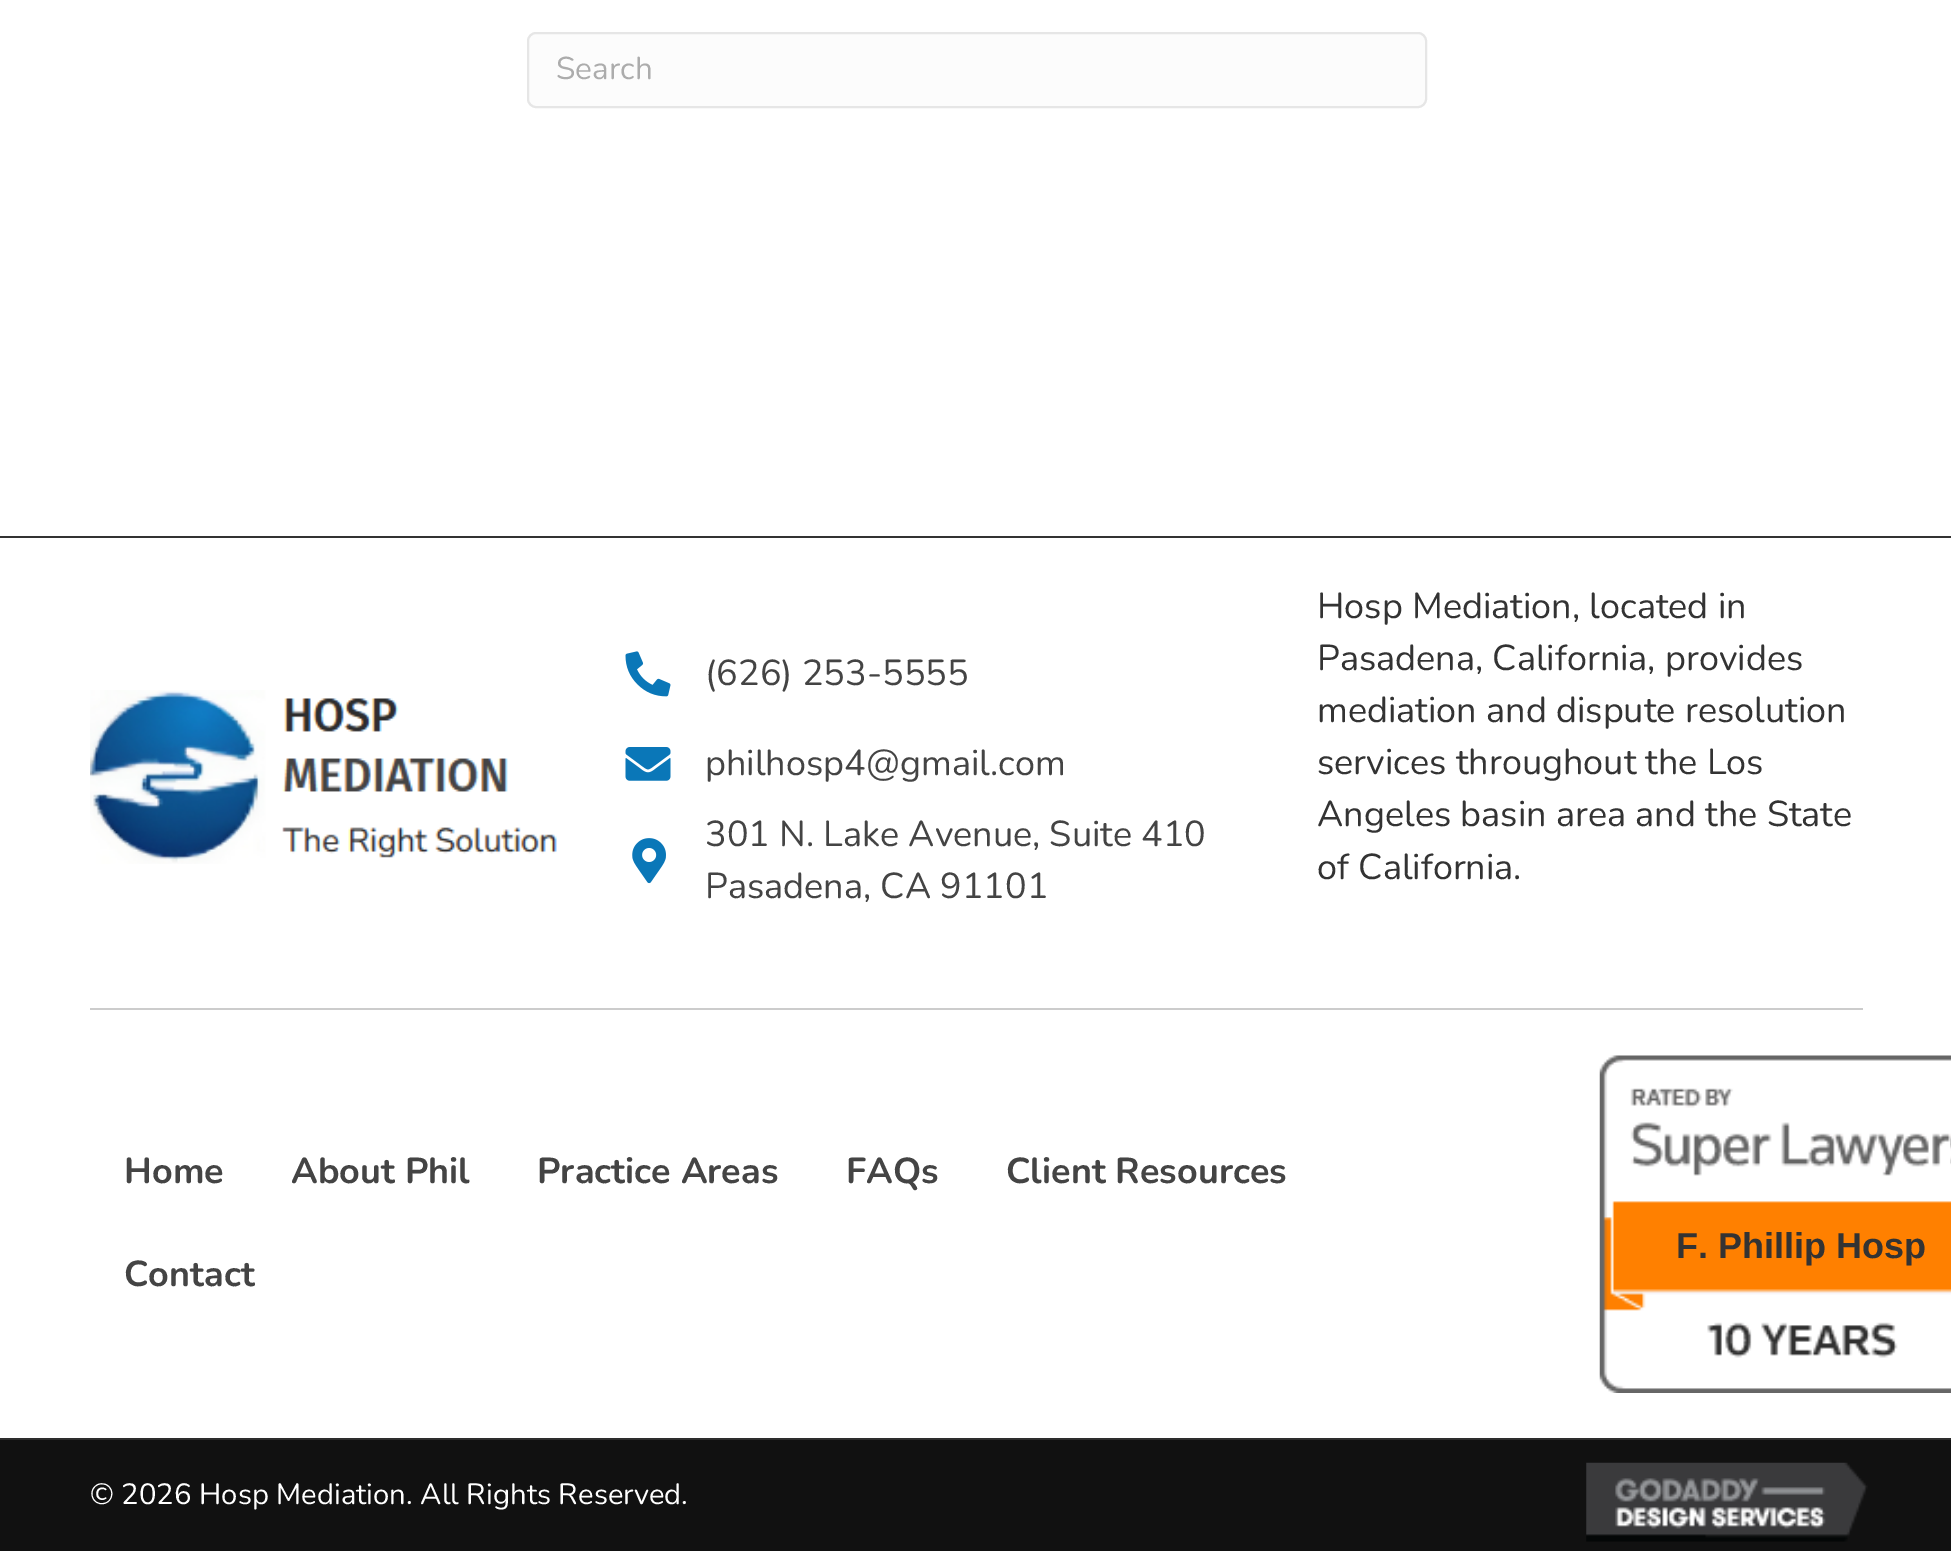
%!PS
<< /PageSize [1951 1551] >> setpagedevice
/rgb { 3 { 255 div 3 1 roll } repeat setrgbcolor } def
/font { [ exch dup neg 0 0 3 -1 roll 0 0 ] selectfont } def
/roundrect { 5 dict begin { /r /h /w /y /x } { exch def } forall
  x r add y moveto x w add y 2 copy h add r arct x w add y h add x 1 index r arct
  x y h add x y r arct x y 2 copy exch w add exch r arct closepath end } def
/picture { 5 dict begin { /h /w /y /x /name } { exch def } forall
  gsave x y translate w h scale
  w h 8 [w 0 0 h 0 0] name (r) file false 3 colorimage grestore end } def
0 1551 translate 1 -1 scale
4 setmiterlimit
255 255 255 rgb
0 0 1951 1551 rectfill
252 252 252 rgb
528 33 898 74 8 roundrect gsave fill grestore
230 230 230 rgb
2 setlinewidth
stroke
51 51 51 rgb
0 536 1951 2 rectfill
(img/1.rgb) 90 690 467 174 picture
(img/2.rgb) 625 651 46 46 picture
(img/3.rgb) 625 747 46 34 picture
(img/4.rgb) 632 838 34 46 picture
204 204 204 rgb
90 1008 1773 2 rectfill
(img/5.rgb) 1599 1055 352 338 picture
17 17 17 rgb
0 1440 1951 111 rectfill
45 45 45 rgb
0 1438 1951 2 rectfill
(img/6.rgb) 1586 1462 282 80 picture
/Nunito-Regular 31.5 font
172 172 172 rgb
556 79 moveto (Search) show
/Nunito-Regular 36 font
68 68 68 rgb
[
  [(\(626\) 253-5555) 705 685]
  [(philhosp4@gmail.com) 705 775]
  [(301 N. Lake Avenue, Suite 410) 705 846]
  [(Pasadena, CA 91101) 705 898]
] { aload pop moveto show } forall
51 51 51 rgb
[
  [(Hosp Mediation, located in) 1317 618]
  [(Pasadena, California, provides) 1317 670]
  [(mediation and dispute resolution) 1317 722]
  [(services throughout the Los) 1317 774]
  [(Angeles basin area and the State) 1317 826]
  [(of California.) 1317 879]
] { aload pop moveto show } forall
/Nunito-Bold 36 font
68 68 68 rgb
[
  [(Home) 124 1183]
  [(About Phil) 291 1183]
  [(Practice Areas) 537 1183]
  [(FAQs) 846 1183]
  [(Client Resources) 1006 1183]
  [(Contact) 124 1286]
] { aload pop moveto show } forall
/LiberationSans-Bold 36 font
51 51 51 rgb
1676 1258 moveto (F. Phillip Hosp) show
/Nunito-Regular 29.25 font
255 255 255 rgb
90 1504 moveto (© 2026 Hosp Mediation. All Rights Reserved.) show
showpage
